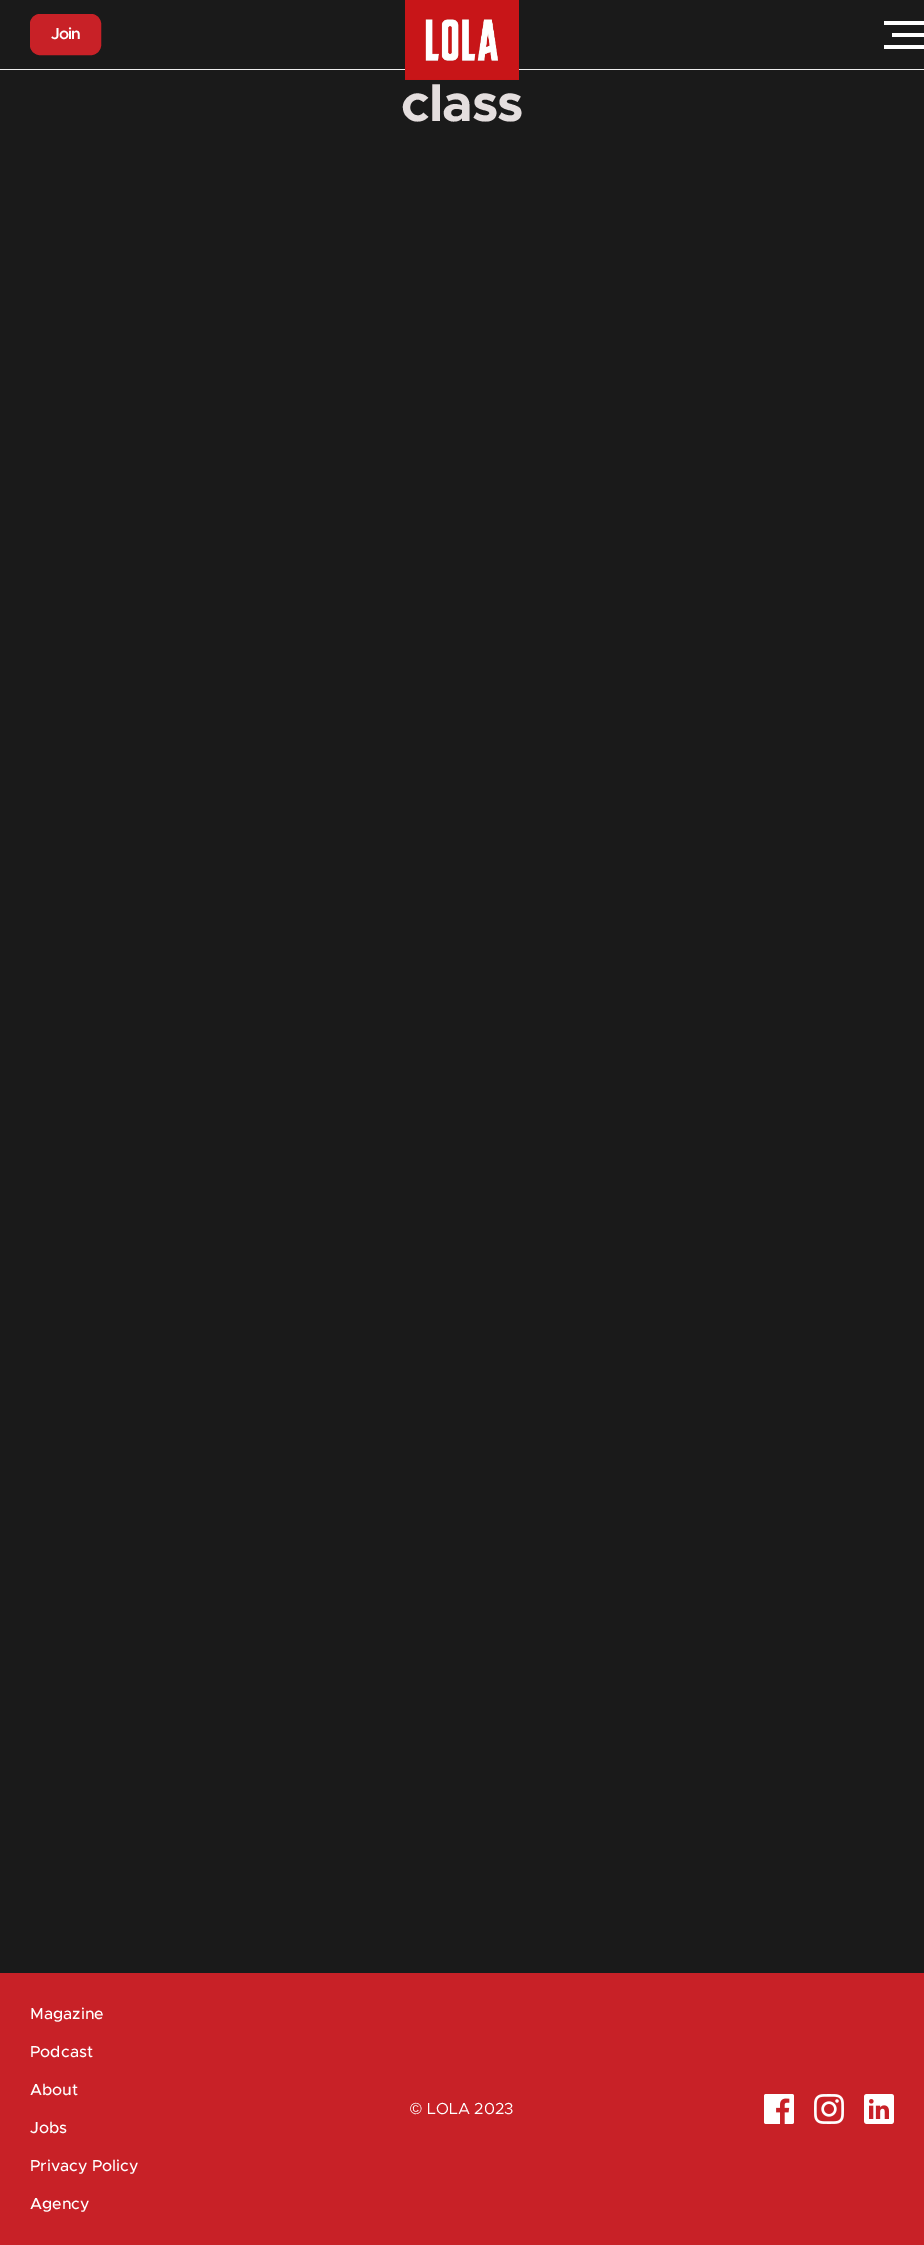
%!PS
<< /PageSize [924 2245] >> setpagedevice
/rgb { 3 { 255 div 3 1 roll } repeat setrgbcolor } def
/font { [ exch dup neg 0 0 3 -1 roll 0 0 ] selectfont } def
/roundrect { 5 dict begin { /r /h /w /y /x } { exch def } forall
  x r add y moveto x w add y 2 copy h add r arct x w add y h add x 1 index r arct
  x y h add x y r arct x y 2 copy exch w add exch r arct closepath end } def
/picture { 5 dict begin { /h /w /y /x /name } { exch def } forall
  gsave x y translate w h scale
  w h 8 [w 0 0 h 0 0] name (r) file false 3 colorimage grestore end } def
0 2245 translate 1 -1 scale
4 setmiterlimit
26 26 26 rgb
0 0 924 2245 rectfill
238 238 238 rgb
0 69 924 1 rectfill
200 33 39 rgb
30.5 14.5 70 40 9.5 roundrect gsave fill grestore
stroke
(img/1.rgb) 405 0 114 80 picture
[
  [884 21 40 4 255 255 255]
  [892 33 32 4 255 255 255]
  [884 45 40 4 255 255 255]
  [0 1973 924 272 200 33 39]
] { aload pop rgb rectfill } forall
(img/2.rgb) 764 2094 30 30 picture
(img/3.rgb) 814 2094 30 30 picture
(img/4.rgb) 864 2094 30 30 picture
/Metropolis-SemiBold 16 font
255 255 255 rgb
51 39 moveto -1 0 (Join) ashow
/Metropolis-Bold 52.5 font
228 222 222 rgb
401 121 moveto -1 0 (class) ashow
/Metropolis-Medium 16 font
255 255 255 rgb
[
  [(Magazine) 30 2019]
  [(Podcast) 30 2057]
  [(About) 30 2095]
  [(Jobs) 30 2133]
  [(Privacy Policy) 30 2171]
  [(Agency) 30 2209]
] { aload pop moveto show } forall
/LiberationSans-Regular 16 font
410 2114 moveto (©) show
/Metropolis-Regular 16 font
427 2114 moveto (LOLA 2023) show
showpage
